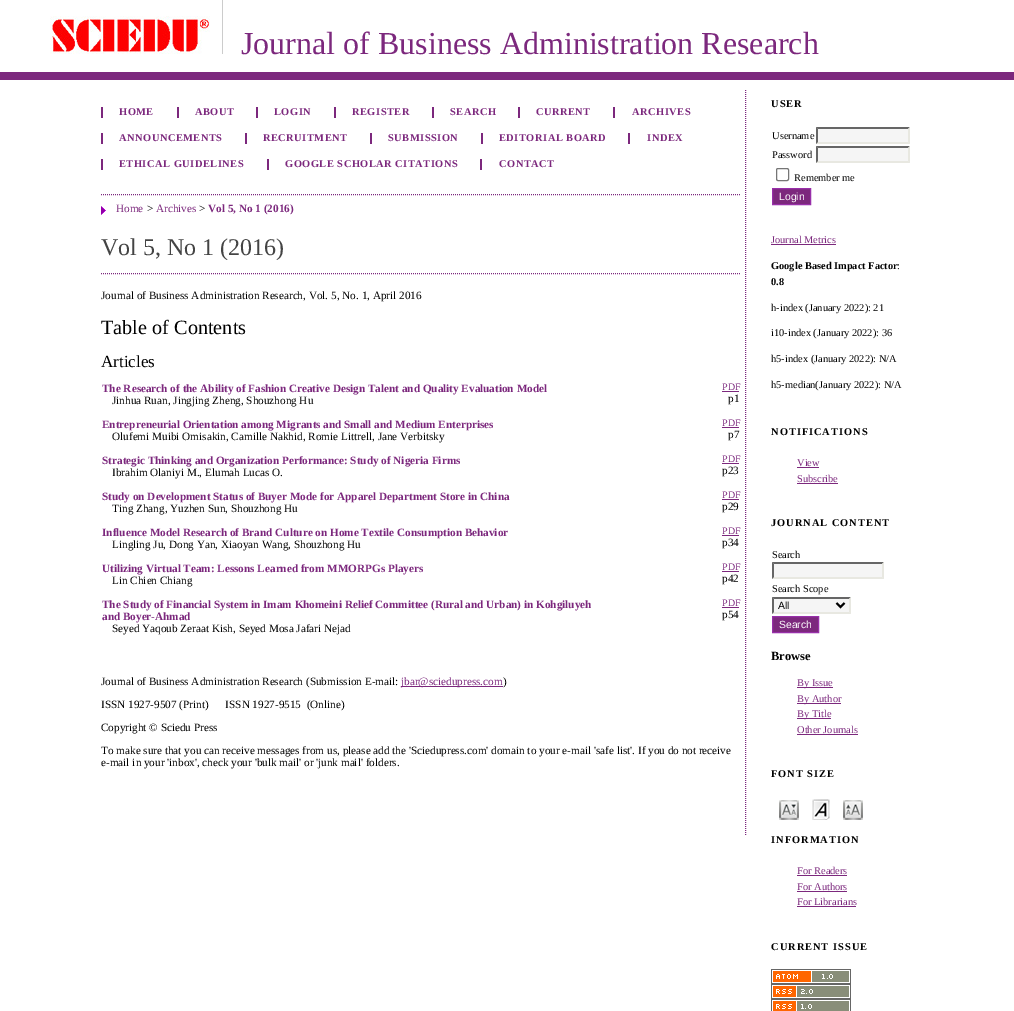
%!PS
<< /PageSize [1014 1011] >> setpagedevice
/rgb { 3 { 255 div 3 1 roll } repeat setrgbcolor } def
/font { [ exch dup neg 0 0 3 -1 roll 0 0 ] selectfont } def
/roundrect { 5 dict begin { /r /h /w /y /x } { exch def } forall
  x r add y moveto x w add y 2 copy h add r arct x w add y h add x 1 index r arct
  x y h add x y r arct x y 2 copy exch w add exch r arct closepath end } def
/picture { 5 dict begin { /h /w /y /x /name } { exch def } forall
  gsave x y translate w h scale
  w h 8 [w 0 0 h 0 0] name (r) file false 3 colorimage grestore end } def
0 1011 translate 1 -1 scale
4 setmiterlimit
255 255 255 rgb
0 0 1014 1011 rectfill
124 40 125 rgb
0 72 1014 8 rectfill
(img/1.rgb) 50 16 160 38 picture
204 204 204 rgb
222 0 1 54 rectfill
124 40 125 rgb
[1 1] 0 setdash
745.5 90 moveto 745.5 836 lineto stroke
[
  [101 107 2 11 124 40 125]
  [177 107 2 11 124 40 125]
  [256 107 2 11 124 40 125]
  [334 107 2 11 124 40 125]
  [432 107 2 11 124 40 125]
  [518 107 2 11 124 40 125]
  [613 107 2 11 124 40 125]
  [101 133 2 11 124 40 125]
  [245 133 2 11 124 40 125]
  [370 133 2 11 124 40 125]
  [481 133 2 11 124 40 125]
  [628 133 2 11 124 40 125]
  [101 159 2 11 124 40 125]
  [267 159 2 11 124 40 125]
  [480 159 2 11 124 40 125]
] { aload pop rgb rectfill } forall
(img/2.rgb) 101 206 5 9 picture
101 194.5 moveto 740 194.5 lineto stroke
101 273.5 moveto 740 273.5 lineto stroke
[
  [722 391 17 1 124 40 125]
  [722 427 17 1 124 40 125]
  [722 463 17 1 124 40 125]
  [722 499 17 1 124 40 125]
  [722 535 17 1 124 40 125]
  [722 571 17 1 124 40 125]
  [722 607 17 1 124 40 125]
  [401 686 102 1 124 40 125]
  [816 127 94 17 245 245 245]
] { aload pop rgb rectfill } forall
102 102 102 rgb
816 127 moveto 910 127 lineto 908 129 lineto 818 129 lineto closepath fill
232 232 225 rgb
910 127 moveto 910 144 lineto 908 142 lineto 908 129 lineto closepath fill
910 144 moveto 816 144 lineto 818 142 lineto 908 142 lineto closepath fill
102 102 102 rgb
816 144 moveto 816 127 lineto 818 129 lineto 818 142 lineto closepath fill
245 245 245 rgb
816 146 94 17 rectfill
102 102 102 rgb
816 146 moveto 910 146 lineto 908 148 lineto 818 148 lineto closepath fill
232 232 225 rgb
910 146 moveto 910 163 lineto 908 161 lineto 908 148 lineto closepath fill
910 163 moveto 816 163 lineto 818 161 lineto 908 161 lineto closepath fill
102 102 102 rgb
816 163 moveto 816 146 lineto 818 148 lineto 818 161 lineto closepath fill
118 118 118 rgb
[] 0 setdash
776.5 168.5 12 12 1.5 roundrect stroke
124 40 125 rgb
772.5 188.5 moveto 810.5 188.5 lineto 810.5 204.5 lineto 772.5 204.5 lineto closepath gsave fill grestore
152 47 169 rgb
stroke
[
  [771 244 65 1 124 40 125]
  [797 467 22 1 124 40 125]
  [797 483 41 1 124 40 125]
  [772 562 112 17 245 245 245]
] { aload pop rgb rectfill } forall
102 102 102 rgb
772 562 moveto 884 562 lineto 882 564 lineto 774 564 lineto closepath fill
232 232 225 rgb
884 562 moveto 884 579 lineto 882 577 lineto 882 564 lineto closepath fill
884 579 moveto 772 579 lineto 774 577 lineto 882 577 lineto closepath fill
102 102 102 rgb
772 579 moveto 772 562 lineto 774 564 lineto 774 577 lineto closepath fill
245 245 245 rgb
772 597 79 17 rectfill
102 102 102 rgb
772 597 moveto 851 597 lineto 849 599 lineto 774 599 lineto closepath fill
232 232 225 rgb
851 597 moveto 851 614 lineto 849 612 lineto 849 599 lineto closepath fill
851 614 moveto 772 614 lineto 774 612 lineto 849 612 lineto closepath fill
102 102 102 rgb
772 614 moveto 772 597 lineto 774 599 lineto 774 612 lineto closepath fill
0 0 0 rgb
2 setlinewidth
836.5 603 moveto 840.5 607 lineto 844.5 603 lineto stroke
124 40 125 rgb
772.5 616.5 moveto 818.5 616.5 lineto 818.5 632.5 lineto 772.5 632.5 lineto closepath gsave fill grestore
152 47 169 rgb
1 setlinewidth
stroke
[
  [797 687 36 1 124 40 125]
  [797 703 44 1 124 40 125]
  [797 718 34 1 124 40 125]
  [797 734 61 1 124 40 125]
] { aload pop rgb rectfill } forall
(img/3.rgb) 779 800 20 20 picture
(img/4.rgb) 812 799 18 21 picture
(img/5.rgb) 843 800 20 20 picture
[
  [797 875 50 1 124 40 125]
  [797 891 50 1 124 40 125]
  [797 906 59 1 124 40 125]
] { aload pop rgb rectfill } forall
(img/6.rgb) 771 969 80 15 picture
(img/7.rgb) 771 984 80 15 picture
(img/8.rgb) 771 999 80 12 picture
/LiberationSerif-Regular 32 font
241 54 moveto (Journal of Business Administration Research) show
/LiberationSerif-Bold 10.4 font
119 115 moveto 0.5 0 (HOME) ashow
195 115 moveto 0.5 0 (ABOUT) ashow
274 115 moveto 0.5 0 (LOGIN) ashow
352 115 moveto 0.5 0 (REGISTER) ashow
450 115 moveto 0.5 0 (SEARCH) ashow
536 115 moveto 0.5 0 (CURRENT) ashow
632 115 moveto 0.5 0 (ARCHIVES) ashow
119 141 moveto 0.5 0 (ANNOUNCEMENTS) ashow
263 141 moveto 0.5 0 (RECRUITMENT) ashow
388 141 moveto 0.5 0 (SUBMISSION) ashow
499 141 moveto 0.5 0 (EDITORIAL BOARD) ashow
647 141 moveto 0.5 0 (INDEX) ashow
119 167 moveto 0.5 0 (ETHICAL GUIDELINES) ashow
285 167 moveto 0.5 0 (GOOGLE SCHOLAR CITATIONS) ashow
499 167 moveto 0.5 0 (CONTACT) ashow
/LiberationSerif-Regular 11.2 font
116 212 moveto (Home) show
0 0 0 rgb
147 212 moveto (>) show
124 40 125 rgb
156 212 moveto (Archives) show
0 0 0 rgb
199 212 moveto (>) show
/LiberationSerif-Bold 11.2 font
124 40 125 rgb
208 212 moveto (Vol 5, No 1 \(2016\)) show
/LiberationSerif-Regular 24 font
68 68 68 rgb
101 255 moveto (Vol 5, No 1 \(2016\)) show
/LiberationSerif-Regular 11.2 font
0 0 0 rgb
101 299 moveto (Journal of Business Administration Research, Vol. 5, No. 1, April 2016) show
/LiberationSerif-Regular 20.25 font
101 334 moveto (Table of Contents) show
/LiberationSerif-Regular 17 font
101 367 moveto (Articles) show
/LiberationSerif-Bold 11.2 font
124 40 125 rgb
102 392 moveto (The Research of the Ability of Fashion Creative Design Talent and Quality Evaluation Model) show
/LiberationSerif-Regular 11.2 font
0 0 0 rgb
112 404 moveto (Jinhua Ruan, Jingjing Zheng, Shouzhong Hu) show
/LiberationSerif-Regular 10 font
124 40 125 rgb
722 390 moveto (PDF) show
/LiberationSerif-Regular 11.2 font
0 0 0 rgb
728 402 moveto (p1) show
/LiberationSerif-Bold 11.2 font
124 40 125 rgb
102 428 moveto (Entrepreneurial Orientation among Migrants and Small and Medium Enterprises) show
/LiberationSerif-Regular 11.2 font
0 0 0 rgb
112 440 moveto (Olufemi Muibi Omisakin, Camille Nakhid, Romie Littrell, Jane Verbitsky) show
/LiberationSerif-Regular 10 font
124 40 125 rgb
722 426 moveto (PDF) show
/LiberationSerif-Regular 11.2 font
0 0 0 rgb
728 438 moveto (p7) show
/LiberationSerif-Bold 11.2 font
124 40 125 rgb
102 464 moveto (Strategic Thinking and Organization Performance: Study of Nigeria Firms) show
/LiberationSerif-Regular 11.2 font
0 0 0 rgb
112 476 moveto (Ibrahim Olaniyi M., Elumah Lucas O.) show
/LiberationSerif-Regular 10 font
124 40 125 rgb
722 462 moveto (PDF) show
/LiberationSerif-Regular 11.2 font
0 0 0 rgb
722 474 moveto (p23) show
/LiberationSerif-Bold 11.2 font
124 40 125 rgb
102 500 moveto (Study on Development Status of Buyer Mode for Apparel Department Store in China) show
/LiberationSerif-Regular 11.2 font
0 0 0 rgb
112 512 moveto (Ting Zhang, Yuzhen Sun, Shouzhong Hu) show
/LiberationSerif-Regular 10 font
124 40 125 rgb
722 498 moveto (PDF) show
/LiberationSerif-Regular 11.2 font
0 0 0 rgb
722 510 moveto (p29) show
/LiberationSerif-Bold 11.2 font
124 40 125 rgb
102 536 moveto (Influence Model Research of Brand Culture on Home Textile Consumption Behavior) show
/LiberationSerif-Regular 11.2 font
0 0 0 rgb
112 548 moveto (Lingling Ju, Dong Yan, Xiaoyan Wang, Shouzhong Hu) show
/LiberationSerif-Regular 10 font
124 40 125 rgb
722 534 moveto (PDF) show
/LiberationSerif-Regular 11.2 font
0 0 0 rgb
722 546 moveto (p34) show
/LiberationSerif-Bold 11.2 font
124 40 125 rgb
102 572 moveto (Utilizing Virtual Team: Lessons Learned from MMORPGs Players) show
/LiberationSerif-Regular 11.2 font
0 0 0 rgb
112 584 moveto (Lin Chien Chiang) show
/LiberationSerif-Regular 10 font
124 40 125 rgb
722 570 moveto (PDF) show
/LiberationSerif-Regular 11.2 font
0 0 0 rgb
722 582 moveto (p42) show
/LiberationSerif-Bold 11.2 font
124 40 125 rgb
102 608 moveto (The Study of Financial System in Imam Khomeini Relief Committee \(Rural and Urban\) in Kohgiluyeh) show
102 620 moveto (and Boyer-Ahmad) show
/LiberationSerif-Regular 11.2 font
0 0 0 rgb
112 632 moveto (Seyed Yaqoub Zeraat Kish, Seyed Mosa Jafari Nejad) show
/LiberationSerif-Regular 10 font
124 40 125 rgb
722 606 moveto (PDF) show
/LiberationSerif-Regular 11.2 font
0 0 0 rgb
722 618 moveto (p54) show
101 685 moveto (Journal of Business Administration Research \(Submission E-mail:) show
124 40 125 rgb
401 685 moveto (jbar@sciedupress.com) show
0 0 0 rgb
[
  [(\)) 503 685]
  [(ISSN 1927-9507 \(Print\)      ISSN 1927-9515  \(Online\)) 101 708]
  [(Copyright © Sciedu Press) 101 731]
  [(To make sure that you can receive messages from us, please add the 'Sciedupress.com' domain to your e-mail 'safe list'. If you do not receive) 101 754]
  [(e-mail in your 'inbox', check your 'bulk mail' or 'junk mail' folders.) 101 766]
] { aload pop moveto show } forall
/LiberationSerif-Bold 10.4 font
771 107 moveto 1 0 (USER) ashow
/LiberationSerif-Regular 10.4 font
[
  [(Username) 772 139]
  [(Password) 772 158]
  [(Remember me) 794 181]
] { aload pop moveto show } forall
/LiberationSans-Regular 10.4 font
255 255 255 rgb
779 200 moveto (Login) show
/LiberationSerif-Regular 10.4 font
124 40 125 rgb
771 243 moveto (Journal Metrics) show
/LiberationSerif-Bold 10.4 font
0 0 0 rgb
771 269 moveto (Google Based Impact Factor) show
/LiberationSerif-Regular 10.4 font
897 269 moveto (:) show
/LiberationSerif-Bold 10.4 font
771 285 moveto (0.8) show
/LiberationSerif-Regular 10.4 font
[
  [(h-index \(January 2022\): 21) 771 311]
  [(i10-index \(January 2022\): 36) 771 336]
  [(h5-index \(January 2022\): N/A) 771 362]
  [(h5-median\(January 2022\): N/A) 771 388]
] { aload pop moveto show } forall
/LiberationSerif-Bold 10.4 font
771 435 moveto 1 0 (NOTIFICATIONS) ashow
/LiberationSerif-Regular 10.4 font
124 40 125 rgb
797 466 moveto (View) show
797 482 moveto (Subscribe) show
/LiberationSerif-Bold 10.4 font
0 0 0 rgb
771 526 moveto 1 0 (JOURNAL CONTENT) ashow
/LiberationSerif-Regular 10.4 font
772 558 moveto (Search) show
772 592 moveto (Search Scope) show
/LiberationSans-Regular 10.4 font
778 609 moveto (All) show
255 255 255 rgb
779 628 moveto (Search) show
/LiberationSerif-Bold 12.5 font
0 0 0 rgb
771 660 moveto (Browse) show
/LiberationSerif-Regular 10.4 font
124 40 125 rgb
[
  [(By Issue) 797 686]
  [(By Author) 797 702]
  [(By Title) 797 717]
  [(Other Journals) 797 733]
] { aload pop moveto show } forall
/LiberationSerif-Bold 10.4 font
0 0 0 rgb
771 777 moveto 1 0 (FONT SIZE) ashow
771 843 moveto 1 0 (INFORMATION) ashow
/LiberationSerif-Regular 10.4 font
124 40 125 rgb
[
  [(For Readers) 797 874]
  [(For Authors) 797 890]
  [(For Librarians) 797 905]
] { aload pop moveto show } forall
/LiberationSerif-Bold 10.4 font
0 0 0 rgb
771 950 moveto 1 0 (CURRENT ISSUE) ashow
showpage
